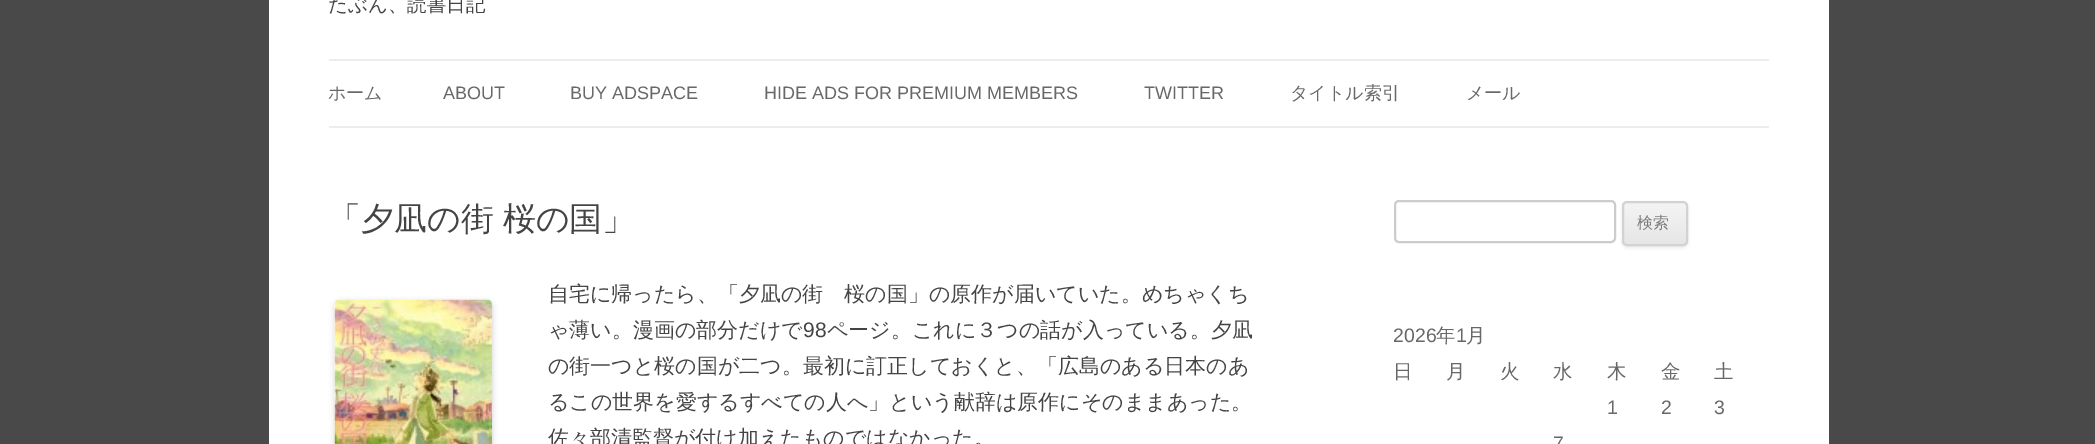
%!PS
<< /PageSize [2095 444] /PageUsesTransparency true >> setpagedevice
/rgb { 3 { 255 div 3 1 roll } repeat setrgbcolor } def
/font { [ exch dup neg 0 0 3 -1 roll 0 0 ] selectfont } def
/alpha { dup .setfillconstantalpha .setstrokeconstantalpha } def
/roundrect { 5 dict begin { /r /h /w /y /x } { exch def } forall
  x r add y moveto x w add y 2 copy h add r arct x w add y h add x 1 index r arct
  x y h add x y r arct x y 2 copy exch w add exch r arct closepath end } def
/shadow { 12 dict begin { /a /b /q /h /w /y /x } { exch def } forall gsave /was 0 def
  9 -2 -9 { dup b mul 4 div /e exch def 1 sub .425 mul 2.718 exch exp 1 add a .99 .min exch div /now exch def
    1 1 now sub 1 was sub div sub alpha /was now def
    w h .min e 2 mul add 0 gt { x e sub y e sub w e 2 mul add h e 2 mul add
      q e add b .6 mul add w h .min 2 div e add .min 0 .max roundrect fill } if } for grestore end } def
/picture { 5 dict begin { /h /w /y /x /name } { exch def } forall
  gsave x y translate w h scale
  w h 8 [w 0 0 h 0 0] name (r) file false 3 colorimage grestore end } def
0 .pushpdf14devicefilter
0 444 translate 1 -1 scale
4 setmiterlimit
73 73 73 rgb
0 0 2095 444 rectfill
[
  [269 0 1560 444 255 255 255]
  [329 59 1440 2 237 237 237]
  [329 126 1440 2 237 237 237]
] { aload pop rgb rectfill } forall
0 0 0 rgb
335 302 157 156 5 3 0.2 shadow
(img/1.rgb) 334 299 158 145 picture
204 204 204 rgb
2 setlinewidth
1395 201 220 41 4 roundrect stroke
64 64 64 rgb
1622 203 66 45 5 1.5 0.1 shadow
gsave
1622 201 66 45 5 roundrect clip newpath
gsave 1622 203 moveto 1688 203 lineto 1688 245 lineto 1622 245 lineto closepath clip newpath
<< /ShadingType 2 /ColorSpace /DeviceRGB /Coords [1655 203 1655 245] /Extend [true true] /Function << /FunctionType 2 /Domain [0 1] /C0 [0.957 0.957 0.957] /C1 [0.902 0.902 0.902] /N 1 >> >> shfill grestore
grestore
210 210 210 rgb
1623 202 64 43 4 roundrect stroke
/WenQuanYiZenHei-Medium 19.5 font
68 68 68 rgb
328 11 moveto (たぶん、読書日記) show
/WenQuanYiZenHei-Medium 18 font
104 104 104 rgb
328 99 moveto (ホーム) show
/LiberationSans-Regular 18 font
[
  [(ABOUT) 443 99]
  [(BUY ADSPACE) 570 99]
  [(HIDE ADS FOR PREMIUM MEMBERS) 764 99]
  [(TWITTER) 1144 99]
] { aload pop moveto show } forall
/WenQuanYiZenHei-Medium 18 font
1290 99 moveto (タイトル索引) show
1466 99 moveto (メール) show
/WenQuanYiZenHei-Medium 33 font
68 68 68 rgb
328 230 moveto -1 0 32 (「夕凪の街 桜の国」) widthshow
/WenQuanYiZenHei-Medium 21 font
548 301 moveto (自宅に帰ったら、「夕凪の街　桜の国」の原作が届いていた。めちゃくち) show
548 337 moveto (ゃ薄い。漫画の部分だけで) show
/LiberationSans-Regular 21 font
803 337 moveto (98) show
/WenQuanYiZenHei-Medium 21 font
[
  [(ページ。これに３つの話が入っている。夕凪) 827 337]
  [(の街一つと桜の国が二つ。最初に訂正しておくと、「広島のある日本のあ) 548 373]
  [(るこの世界を愛するすべての人へ」という献辞は原作にそのままあった。) 548 409]
  [(佐々部清監督が付け加えたものではなかった。) 548 445]
] { aload pop moveto show } forall
/WenQuanYiZenHei-Medium 16 font
124 124 124 rgb
1637 228 moveto (検索) show
/LiberationSans-Regular 19.5 font
104 104 104 rgb
1393 342 moveto (2026) show
/WenQuanYiZenHei-Medium 19.5 font
1436 342 moveto (年) show
/LiberationSans-Regular 19.5 font
1456 342 moveto (1) show
/WenQuanYiZenHei-Medium 19.5 font
[
  [(月) 1466 342]
  [(日) 1393 378]
  [(月) 1446 378]
  [(火) 1500 378]
  [(水) 1553 378]
  [(木) 1607 378]
  [(金) 1661 378]
  [(土) 1714 378]
] { aload pop moveto show } forall
/LiberationSans-Regular 19.5 font
[
  [(1) 1607 414]
  [(2) 1661 414]
  [(3) 1714 414]
  [(7) 1553 450]
] { aload pop moveto show } forall
.poppdf14devicefilter showpage
